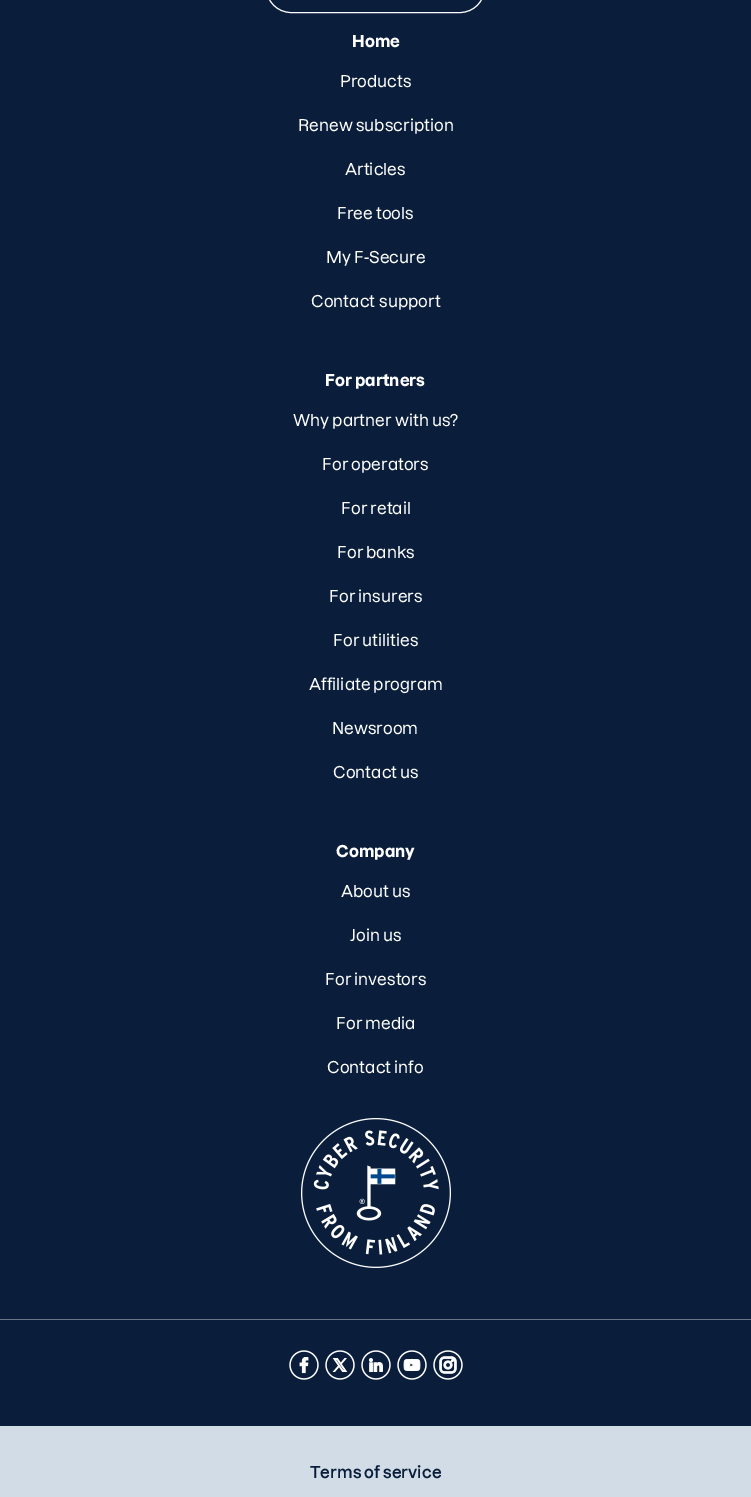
%!PS
<< /PageSize [751 1497] >> setpagedevice
/rgb { 3 { 255 div 3 1 roll } repeat setrgbcolor } def
/font { [ exch dup neg 0 0 3 -1 roll 0 0 ] selectfont } def
/roundrect { 5 dict begin { /r /h /w /y /x } { exch def } forall
  x r add y moveto x w add y 2 copy h add r arct x w add y h add x 1 index r arct
  x y h add x y r arct x y 2 copy exch w add exch r arct closepath end } def
/picture { 5 dict begin { /h /w /y /x /name } { exch def } forall
  gsave x y translate w h scale
  w h 8 [w 0 0 h 0 0] name (r) file false 3 colorimage grestore end } def
0 1497 translate 1 -1 scale
4 setmiterlimit
10 30 60 rgb
0 0 751 1497 rectfill
255 255 255 rgb
266.5 -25.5 218 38 24.5 roundrect stroke
106 116 134 rgb
0 1319 751 1 rectfill
(img/1.rgb) 301 1118 150 150 picture
(img/2.rgb) 289 1350 30 30 picture
(img/3.rgb) 325 1350 30 30 picture
(img/4.rgb) 361 1350 30 30 picture
(img/5.rgb) 397 1350 30 30 picture
(img/6.rgb) 433 1350 30 30 picture
210 220 230 rgb
0 1426 751 71 rectfill
/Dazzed-Bold 16 font
255 255 255 rgb
352 47 moveto (Home) show
/Dazzed-Medium 16 font
[
  [(Products) 340 87]
  [(Renew subscription) 298 131]
  [(Articles) 345 175]
  [(Free tools) 337 219]
  [(My F-Secure) 326 263]
] { aload pop moveto show } forall
311 307 moveto 1 0 32 (Contact support) widthshow
/Dazzed-Bold 16 font
325 386 moveto (For partners) show
/Dazzed-Medium 16 font
[
  [(Why partner with us?) 293 426]
  [(For operators) 322 470]
  [(For retail) 341 514]
  [(For banks) 337 558]
  [(For insurers) 329 602]
  [(For utilities) 333 646]
  [(Affiliate program) 309 690]
  [(Newsroom) 332 734]
  [(Contact us) 333 778]
] { aload pop moveto show } forall
/Dazzed-Bold 16 font
336 857 moveto (Company) show
/Dazzed-Medium 16 font
[
  [(About us) 341 897]
  [(Join us) 350 941]
  [(For investors) 325 985]
  [(For media) 336 1029]
  [(Contact info) 327 1073]
] { aload pop moveto show } forall
/Dazzed-SemiBold 16 font
10 30 60 rgb
310 1478 moveto (Terms of service) show
showpage
